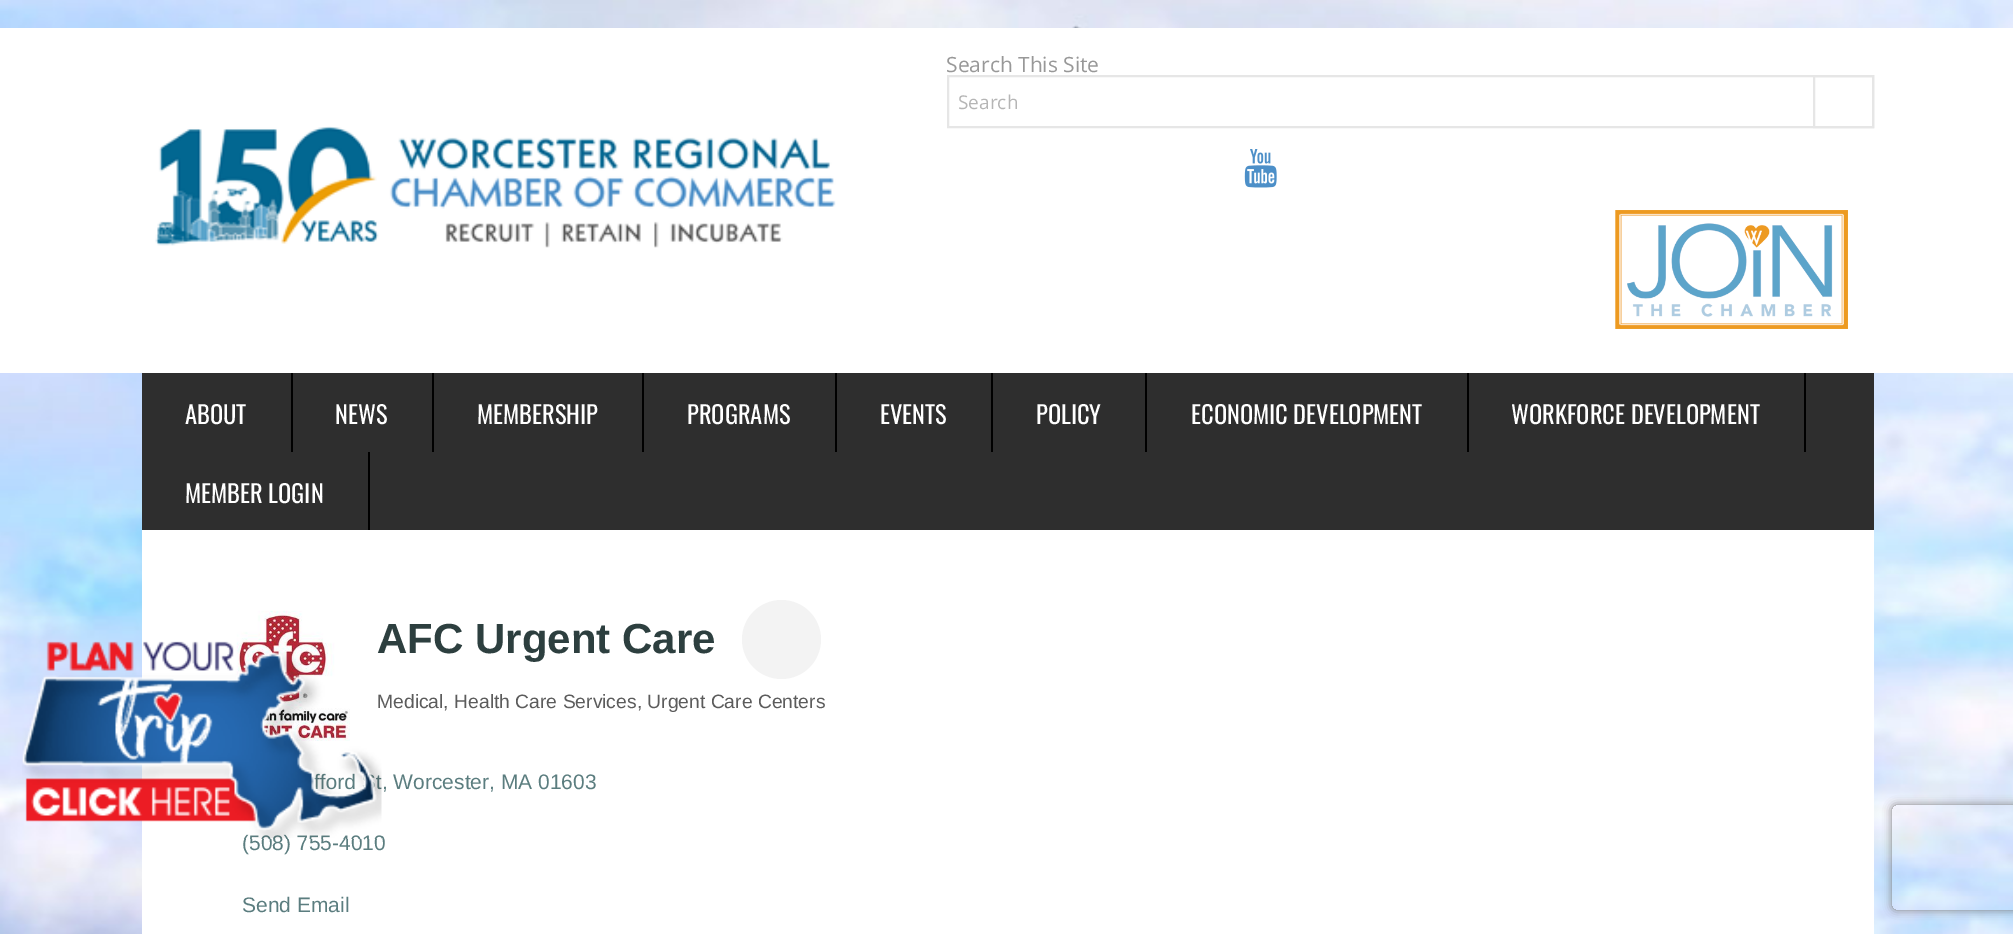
%!PS
<< /PageSize [2013 934] /PageUsesTransparency true >> setpagedevice
/rgb { 3 { 255 div 3 1 roll } repeat setrgbcolor } def
/font { [ exch dup neg 0 0 3 -1 roll 0 0 ] selectfont } def
/alpha { dup .setfillconstantalpha .setstrokeconstantalpha } def
/circle { newpath 0 360 arc closepath } def
/roundrect { 5 dict begin { /r /h /w /y /x } { exch def } forall
  x r add y moveto x w add y 2 copy h add r arct x w add y h add x 1 index r arct
  x y h add x y r arct x y 2 copy exch w add exch r arct closepath end } def
/shadow { 12 dict begin { /a /b /q /h /w /y /x } { exch def } forall gsave /was 0 def
  9 -2 -9 { dup b mul 4 div /e exch def 1 sub .425 mul 2.718 exch exp 1 add a .99 .min exch div /now exch def
    1 1 now sub 1 was sub div sub alpha /was now def
    w h .min e 2 mul add 0 gt { x e sub y e sub w e 2 mul add h e 2 mul add
      q e add b .6 mul add w h .min 2 div e add .min 0 .max roundrect fill } if } for grestore end } def
/picture { 5 dict begin { /h /w /y /x /name } { exch def } forall
  gsave x y translate w h scale
  w h 8 [w 0 0 h 0 0] name (r) file false 3 colorimage grestore end } def
0 .pushpdf14devicefilter
0 934 translate 1 -1 scale
4 setmiterlimit
255 255 255 rgb
0 0 2013 934 rectfill
(img/1.rgb) 0 0 2013 934 picture
0 28 2013 345 rectfill
230 230 230 rgb
2 setlinewidth
948 76 925 51 rectstroke
1814 76 59 51 rectstroke
(img/2.rgb) 1244 149 33 39 picture
(img/3.rgb) 1615 210 233 119 picture
(img/4.rgb) 155 126 681 122 picture
[
  [142 530 1732 404 255 255 255]
  [142 373 1732 157 46 46 46]
  [291 373 2 79 0 0 0]
  [432 373 2 79 0 0 0]
  [642 373 2 79 0 0 0]
  [835 373 2 79 0 0 0]
  [991 373 2 79 0 0 0]
  [1145 373 2 79 0 0 0]
  [1467 373 2 79 0 0 0]
  [1804 373 2 79 0 0 0]
  [368 452 2 78 0 0 0]
] { aload pop rgb rectfill } forall
(img/5.rgb) 215 610 135 131 picture
243 243 243 rgb
781.5 639.5 39.5 circle fill
gsave
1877 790 moveto 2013 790 lineto 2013 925 lineto 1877 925 lineto closepath 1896 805 moveto 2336 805 lineto 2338 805 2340 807 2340 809 curveto 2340 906 lineto 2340 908 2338 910 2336 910 curveto 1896 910 lineto 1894 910 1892 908 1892 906 curveto 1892 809 lineto 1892 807 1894 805 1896 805 curveto closepath eoclip newpath
128 128 128 rgb
1892 805 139 105 4 4.5 1 shadow
grestore
/OpenSans-Regular 21 font
152 152 152 rgb
946 72 moveto (Search This Site) show
/OpenSans-Regular 19 font
181 181 181 rgb
958 109 moveto (Search) show
/Oswald-Regular 24.5 font
255 255 255 rgb
[
  [(ABOUT) 185 424]
  [(NEWS) 335 424]
  [(MEMBERSHIP) 477 424]
  [(PROGRAMS) 687 424]
  [(EVENTS) 880 424]
  [(POLICY) 1036 424]
  [(ECONOMIC DEVELOPMENT) 1191 424]
  [(WORKFORCE DEVELOPMENT) 1511 424]
  [(MEMBER LOGIN) 185 503]
] { aload pop moveto show } forall
/LiberationSans-Bold 42 font
45 63 63 rgb
377 653 moveto (AFC Urgent Care) show
/LiberationSans-Regular 19.3 font
92 92 92 rgb
377 708 moveto (Medical, Health Care Services, Urgent Care Centers) show
/LiberationSans-Regular 21 font
91 125 127 rgb
[
  [(fford St, Worcester, MA 01603) 314 789]
  [(\(508\) 755-4010) 242 850]
  [(Send Email) 242 912]
] { aload pop moveto show } forall
(img/6.rgb) 22 641 360 198 picture
.poppdf14devicefilter showpage
